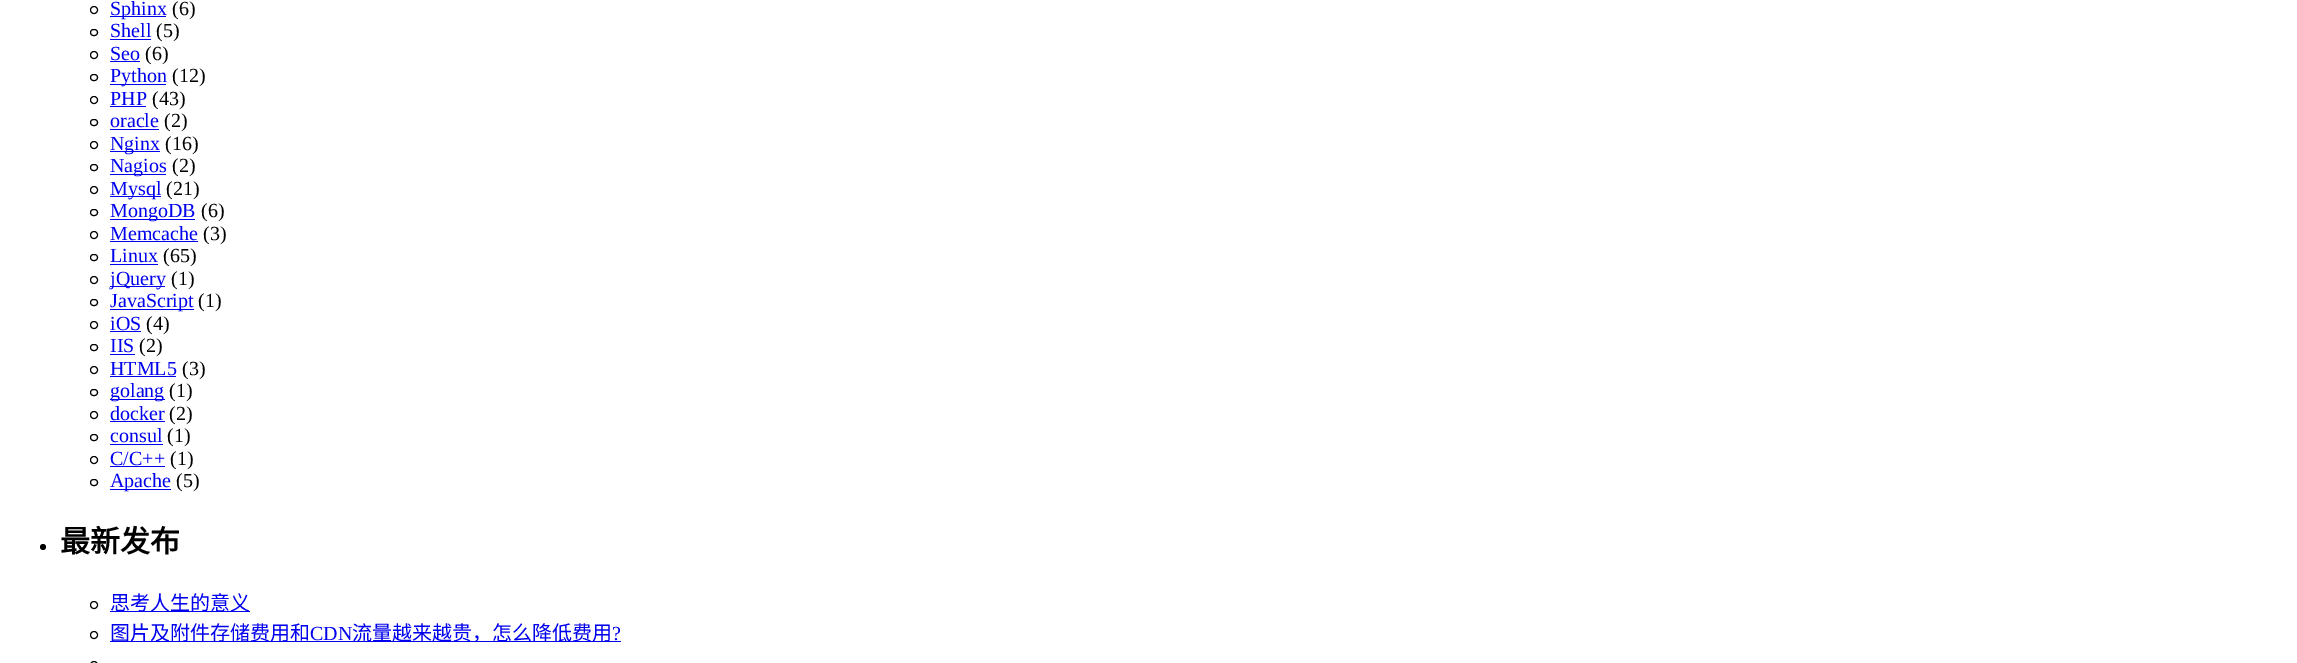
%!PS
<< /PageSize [2297 663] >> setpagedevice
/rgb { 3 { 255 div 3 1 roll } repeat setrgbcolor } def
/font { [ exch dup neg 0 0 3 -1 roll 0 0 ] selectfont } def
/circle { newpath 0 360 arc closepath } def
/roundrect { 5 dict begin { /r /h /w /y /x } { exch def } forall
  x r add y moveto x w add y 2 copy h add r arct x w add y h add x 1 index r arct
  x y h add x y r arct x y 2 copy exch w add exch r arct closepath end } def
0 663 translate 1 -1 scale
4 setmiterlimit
255 255 255 rgb
0 0 2297 663 rectfill
0 0 0 rgb
94 10 3.5 circle stroke
0 0 238 rgb
110 16 56 1 rectfill
0 0 0 rgb
90.5 29.5 7 6 3 roundrect stroke
0 0 238 rgb
110 39 41 1 rectfill
0 0 0 rgb
94 55 3.5 circle stroke
0 0 238 rgb
110 61 30 1 rectfill
0 0 0 rgb
90.5 74.5 7 6 3 roundrect stroke
0 0 238 rgb
110 84 56 1 rectfill
0 0 0 rgb
94 100 3.5 circle stroke
0 0 238 rgb
110 106 36 1 rectfill
0 0 0 rgb
90.5 119.5 7 6 3 roundrect stroke
0 0 238 rgb
110 129 49 1 rectfill
0 0 0 rgb
94 145 3.5 circle stroke
0 0 238 rgb
110 151 50 1 rectfill
0 0 0 rgb
90.5 164.5 7 6 3 roundrect stroke
0 0 238 rgb
110 174 56 1 rectfill
0 0 0 rgb
94 190 3.5 circle stroke
0 0 238 rgb
110 196 51 1 rectfill
0 0 0 rgb
90.5 209.5 7 6 3 roundrect stroke
0 0 238 rgb
110 219 85 1 rectfill
0 0 0 rgb
94 235 3.5 circle stroke
0 0 238 rgb
110 241 88 1 rectfill
0 0 0 rgb
90.5 254.5 7 6 3 roundrect stroke
0 0 238 rgb
110 264 48 1 rectfill
0 0 0 rgb
94 280 3.5 circle stroke
0 0 238 rgb
110 286 55 1 rectfill
0 0 0 rgb
90.5 299.5 7 6 3 roundrect stroke
0 0 238 rgb
110 309 84 1 rectfill
0 0 0 rgb
94 325 3.5 circle stroke
0 0 238 rgb
110 331 31 1 rectfill
0 0 0 rgb
90.5 344.5 7 6 3 roundrect stroke
0 0 238 rgb
110 354 25 1 rectfill
0 0 0 rgb
94 370 3.5 circle stroke
0 0 238 rgb
110 376 66 1 rectfill
0 0 0 rgb
90.5 389.5 7 6 3 roundrect stroke
0 0 238 rgb
110 399 55 1 rectfill
0 0 0 rgb
94 415 3.5 circle stroke
0 0 238 rgb
110 421 55 1 rectfill
0 0 0 rgb
90.5 434.5 7 6 3 roundrect stroke
0 0 238 rgb
110 444 53 1 rectfill
0 0 0 rgb
94 460 3.5 circle stroke
0 0 238 rgb
110 466 55 1 rectfill
0 0 0 rgb
90.5 479.5 7 6 3 roundrect stroke
0 0 238 rgb
110 489 61 1 rectfill
0 0 0 rgb
43 547 3 circle fill
94 605 3.5 circle stroke
0 0 238 rgb
110 611 140 1 rectfill
0 0 0 rgb
94 635 3.5 circle stroke
0 0 238 rgb
110 641 511 1 rectfill
0 0 0 rgb
90.5 661.5 7 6 3.5 roundrect stroke
/LiberationSerif-Regular 20 font
0 0 238 rgb
110 15 moveto (Sphinx) show
0 0 0 rgb
172 15 moveto (\(6\)) show
0 0 238 rgb
110 37 moveto (Shell) show
0 0 0 rgb
156 37 moveto (\(5\)) show
0 0 238 rgb
110 60 moveto (Seo) show
0 0 0 rgb
145 60 moveto (\(6\)) show
0 0 238 rgb
110 82 moveto (Python) show
0 0 0 rgb
172 82 moveto (\(12\)) show
0 0 238 rgb
110 105 moveto (PHP) show
0 0 0 rgb
152 105 moveto (\(43\)) show
0 0 238 rgb
110 127 moveto (oracle) show
0 0 0 rgb
164 127 moveto (\(2\)) show
0 0 238 rgb
110 150 moveto (Nginx) show
0 0 0 rgb
165 150 moveto (\(16\)) show
0 0 238 rgb
110 172 moveto (Nagios) show
0 0 0 rgb
172 172 moveto (\(2\)) show
0 0 238 rgb
110 195 moveto (Mysql) show
0 0 0 rgb
166 195 moveto (\(21\)) show
0 0 238 rgb
110 217 moveto (MongoDB) show
0 0 0 rgb
201 217 moveto (\(6\)) show
0 0 238 rgb
110 240 moveto (Memcache) show
0 0 0 rgb
203 240 moveto (\(3\)) show
0 0 238 rgb
110 262 moveto (Linux) show
0 0 0 rgb
163 262 moveto (\(65\)) show
0 0 238 rgb
110 285 moveto (jQuery) show
0 0 0 rgb
171 285 moveto (\(1\)) show
0 0 238 rgb
110 307 moveto (JavaScript) show
0 0 0 rgb
198 307 moveto (\(1\)) show
0 0 238 rgb
110 330 moveto (iOS) show
0 0 0 rgb
146 330 moveto (\(4\)) show
0 0 238 rgb
110 352 moveto (IIS) show
0 0 0 rgb
139 352 moveto (\(2\)) show
0 0 238 rgb
110 375 moveto (HTML5) show
0 0 0 rgb
182 375 moveto (\(3\)) show
0 0 238 rgb
110 397 moveto (golang) show
0 0 0 rgb
169 397 moveto (\(1\)) show
0 0 238 rgb
110 420 moveto (docker) show
0 0 0 rgb
169 420 moveto (\(2\)) show
0 0 238 rgb
110 442 moveto (consul) show
0 0 0 rgb
167 442 moveto (\(1\)) show
0 0 238 rgb
110 465 moveto (C/C++) show
0 0 0 rgb
170 465 moveto (\(1\)) show
0 0 238 rgb
110 487 moveto (Apache) show
0 0 0 rgb
176 487 moveto (\(5\)) show
/NotoSansCJKSC-Bold 30 font
60 552 moveto (最新发布) show
/NotoSansCJKSC-Regular 20 font
0 0 238 rgb
110 610 moveto (思考人生的意义) show
110 640 moveto (图片及附件存储费用和) show
/LiberationSerif-Regular 20 font
310 640 moveto (CDN) show
/NotoSansCJKSC-Regular 20 font
352 640 moveto (流量越来越贵，怎么降低费用) show
/LiberationSerif-Regular 20 font
612 640 moveto (?) show
showpage
